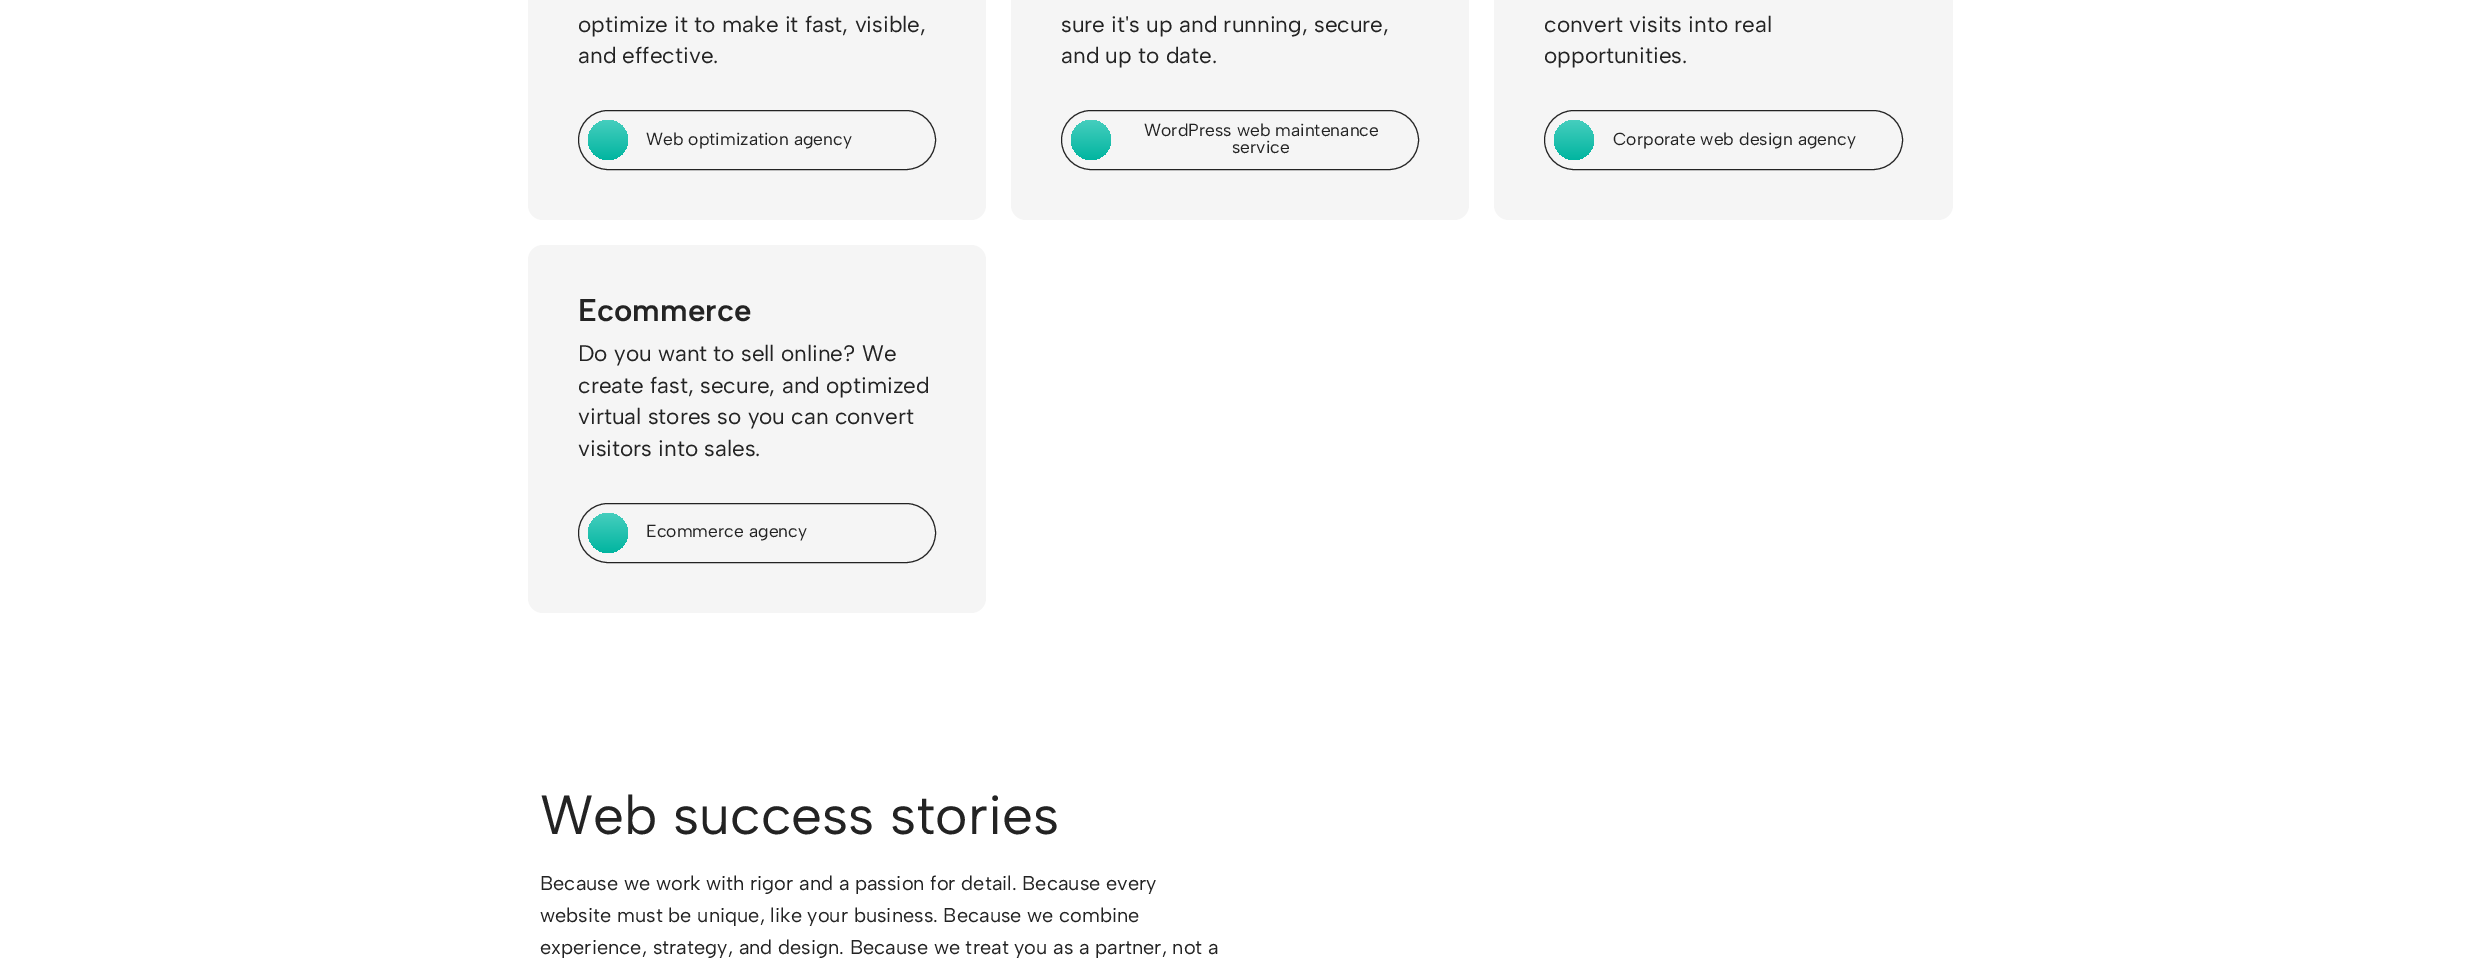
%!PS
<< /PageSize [2480 972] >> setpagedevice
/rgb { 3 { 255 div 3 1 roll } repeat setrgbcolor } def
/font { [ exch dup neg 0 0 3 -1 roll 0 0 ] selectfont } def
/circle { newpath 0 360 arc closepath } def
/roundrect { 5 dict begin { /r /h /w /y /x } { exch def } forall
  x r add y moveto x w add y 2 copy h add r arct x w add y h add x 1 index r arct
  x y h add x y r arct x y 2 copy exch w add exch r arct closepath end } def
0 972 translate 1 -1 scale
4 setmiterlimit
255 255 255 rgb
0 0 2480 972 rectfill
245 245 245 rgb
528 -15 458 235 15 roundrect fill
gsave 608 140 20 circle clip newpath
<< /ShadingType 2 /ColorSpace /DeviceRGB /Coords [608 160 608 120] /Extend [true true] /Function << /FunctionType 2 /Domain [0 1] /C0 [0.004 0.71 0.627] /C1 [0.275 0.808 0.745] /N 1 >> >> shfill grestore
35 35 35 rgb
578.5 110.5 357 59 29.5 roundrect stroke
245 245 245 rgb
1011 -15 458 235 15 roundrect fill
gsave 1091 140 20 circle clip newpath
<< /ShadingType 2 /ColorSpace /DeviceRGB /Coords [1091 160 1091 120] /Extend [true true] /Function << /FunctionType 2 /Domain [0 1] /C0 [0.004 0.71 0.627] /C1 [0.275 0.808 0.745] /N 1 >> >> shfill grestore
35 35 35 rgb
1061.5 110.5 357 59 29.5 roundrect stroke
245 245 245 rgb
1494 -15 459 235 15 roundrect fill
gsave 1574 140 20 circle clip newpath
<< /ShadingType 2 /ColorSpace /DeviceRGB /Coords [1574 160 1574 120] /Extend [true true] /Function << /FunctionType 2 /Domain [0 1] /C0 [0.004 0.71 0.627] /C1 [0.275 0.808 0.745] /N 1 >> >> shfill grestore
35 35 35 rgb
1544.5 110.5 358 59 29.5 roundrect stroke
245 245 245 rgb
528 245 458 368 15 roundrect fill
gsave 608 533 20 circle clip newpath
<< /ShadingType 2 /ColorSpace /DeviceRGB /Coords [608 553 608 513] /Extend [true true] /Function << /FunctionType 2 /Domain [0 1] /C0 [0.004 0.71 0.627] /C1 [0.275 0.808 0.745] /N 1 >> >> shfill grestore
35 35 35 rgb
578.5 503.5 357 59 29.5 roundrect stroke
/AlbertSans-Regular 22.5 font
578 32 moveto (optimize it to make it fast, visible,) show
578 63 moveto (and effective.) show
/AlbertSans-Regular 17.5 font
646 145 moveto (Web optimization agency) show
/AlbertSans-Regular 22.5 font
1061 32 moveto (sure it's up and running, secure,) show
1061 63 moveto (and up to date.) show
/AlbertSans-Regular 17.5 font
1144 136 moveto (WordPress web maintenance) show
1232 153 moveto (service) show
/AlbertSans-Regular 22.5 font
1544 32 moveto (convert visits into real) show
1544 63 moveto (opportunities.) show
/AlbertSans-Regular 17.5 font
1613 145 moveto (Corporate web design agency) show
/AlbertSans-SemiBold 31.25 font
578 321 moveto (Ecommerce) show
/AlbertSans-Regular 22.5 font
[
  [(Do you want to sell online? We) 578 361]
  [(create fast, secure, and optimized) 578 393]
  [(virtual stores so you can convert) 578 424]
  [(visitors into sales.) 578 456]
] { aload pop moveto show } forall
/AlbertSans-Regular 17.5 font
646 537 moveto (Ecommerce agency) show
/AlbertSans-Regular 55 font
540 834 moveto (Web success stories) show
/AlbertSans-Regular 20 font
[
  [(Because we work with rigor and a passion for detail. Because every) 540 890]
  [(website must be unique, like your business. Because we combine) 540 922]
  [(experience, strategy, and design. Because we treat you as a partner, not a) 540 954]
] { aload pop moveto show } forall
showpage
